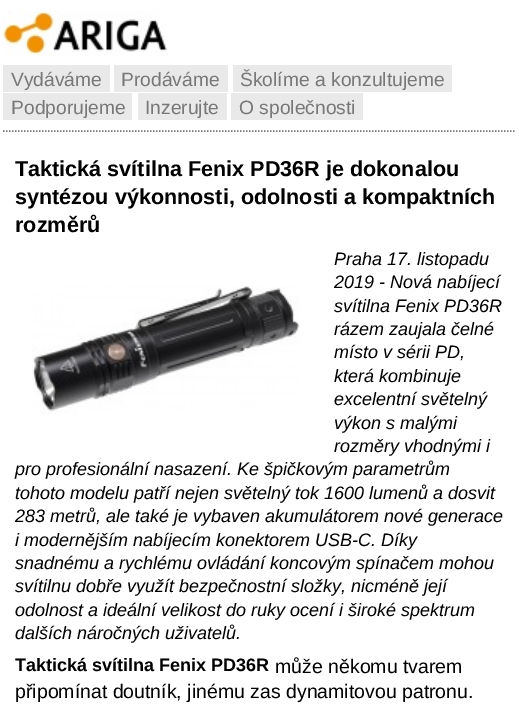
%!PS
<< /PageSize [519 715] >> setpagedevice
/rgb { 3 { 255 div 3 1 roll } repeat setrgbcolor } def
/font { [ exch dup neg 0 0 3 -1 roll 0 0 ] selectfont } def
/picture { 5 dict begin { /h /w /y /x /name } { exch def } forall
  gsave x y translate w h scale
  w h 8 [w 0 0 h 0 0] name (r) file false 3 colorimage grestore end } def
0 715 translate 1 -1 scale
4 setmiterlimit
255 255 255 rgb
0 0 519 715 rectfill
(img/1.rgb) 3 10 165 46 picture
120 120 120 rgb
1.5 setlinewidth
[1.5 1.5] 0 setdash
3 131 moveto 516 131 lineto stroke
[
  [3 65 107 27 233 233 233]
  [114 65 114 27 233 233 233]
  [233 65 219 27 233 233 233]
  [3 93 129 27 233 233 233]
  [138 93 89 27 233 233 233]
  [231 93 132 27 233 233 233]
] { aload pop rgb rectfill } forall
(img/2.rgb) 32 286 268 129 picture
/LiberationSans-Regular 19.25 font
120 120 120 rgb
[
  [(Vydáváme) 11 86]
  [(Prodáváme) 121 86]
  [(Školíme a konzultujeme) 240 86]
  [(Podporujeme) 11 114]
  [(Inzerujte) 145 114]
  [(O společnosti) 239 114]
] { aload pop moveto show } forall
/LiberationSans-Bold 21.6 font
0 0 0 rgb
[
  [(Taktická svítilna Fenix PD36R je dokonalou) 15 176]
  [(syntézou výkonnosti, odolnosti a kompaktních) 15 204]
  [(rozměrů) 15 232]
] { aload pop moveto show } forall
/LiberationSans-Italic 18 font
[
  [(Praha 17. listopadu) 334 265]
  [(2019 - Nová nabíjecí) 334 288]
  [(svítilna Fenix PD36R) 334 312]
  [(rázem zaujala čelné) 334 335]
  [(místo v sérii PD,) 334 358]
  [(která kombinuje) 334 382]
  [(excelentní světelný) 334 405]
  [(výkon s malými) 334 429]
  [(rozměry vhodnými i) 334 452]
  [(pro profesionální nasazení. Ke špičkovým parametrům) 15 475]
  [(tohoto modelu patří nejen světelný tok 1600 lumenů a dosvit) 15 499]
  [(283 metrů, ale také je vybaven akumulátorem nové generace) 15 522]
  [(i modernějším nabíjecím konektorem USB-C. Díky) 15 546]
  [(snadnému a rychlému ovládání koncovým spínačem mohou) 15 569]
  [(svítilnu dobře využít bezpečnostní složky, nicméně její) 15 592]
  [(odolnost a ideální velikost do ruky ocení i široké spektrum) 15 616]
  [(dalších náročných uživatelů.) 15 639]
] { aload pop moveto show } forall
/LiberationSans-Bold 18 font
15 671 moveto (Taktická svítilna Fenix PD36R) show
/LiberationSans-Regular 19.5 font
275 673 moveto (může někomu tvarem) show
15 698 moveto (připomínat doutník, jinému zas dynamitovou patronu.) show
showpage
